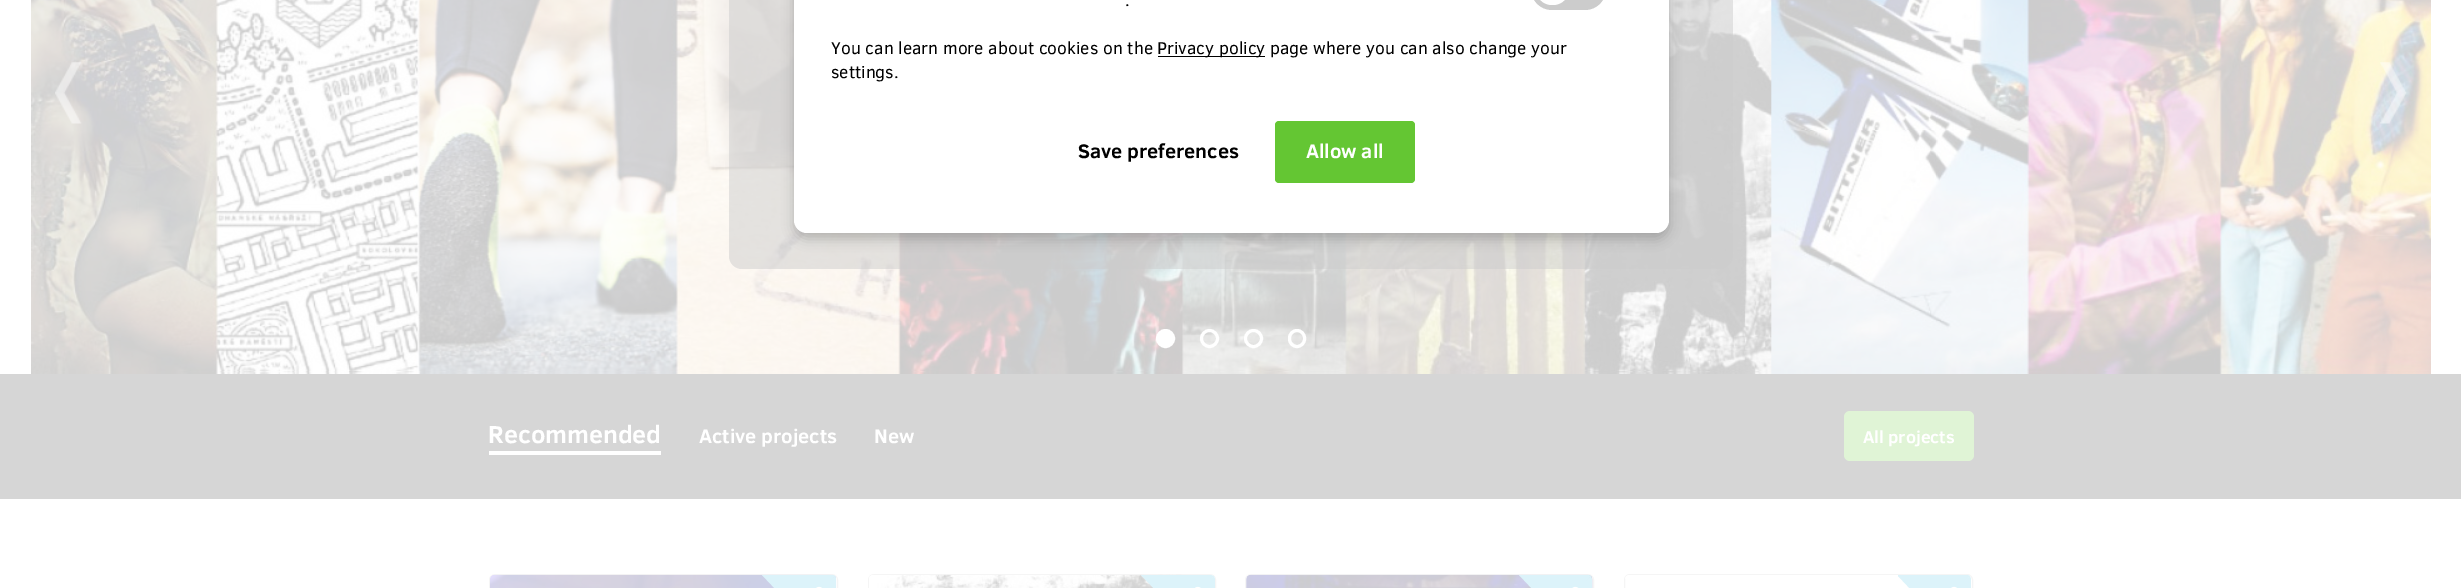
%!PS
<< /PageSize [2461 588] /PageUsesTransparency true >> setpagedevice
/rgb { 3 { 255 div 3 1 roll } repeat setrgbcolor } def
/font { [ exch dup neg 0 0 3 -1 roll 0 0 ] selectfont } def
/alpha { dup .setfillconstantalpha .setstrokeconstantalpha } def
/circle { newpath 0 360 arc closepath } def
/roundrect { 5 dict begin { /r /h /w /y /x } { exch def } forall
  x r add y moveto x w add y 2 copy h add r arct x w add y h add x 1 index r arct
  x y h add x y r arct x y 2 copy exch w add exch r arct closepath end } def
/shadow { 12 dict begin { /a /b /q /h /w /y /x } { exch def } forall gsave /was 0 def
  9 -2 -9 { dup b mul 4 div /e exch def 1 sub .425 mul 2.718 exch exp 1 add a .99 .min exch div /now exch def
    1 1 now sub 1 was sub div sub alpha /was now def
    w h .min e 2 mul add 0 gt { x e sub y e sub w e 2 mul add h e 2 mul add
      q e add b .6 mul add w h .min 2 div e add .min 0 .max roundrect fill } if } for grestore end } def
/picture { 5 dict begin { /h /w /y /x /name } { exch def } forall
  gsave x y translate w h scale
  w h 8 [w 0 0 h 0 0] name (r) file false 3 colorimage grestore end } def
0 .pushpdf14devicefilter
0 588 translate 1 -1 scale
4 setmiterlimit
255 255 255 rgb
0 0 2461 588 rectfill
(img/1.rgb) 31 0 2400 374 picture
0.5 alpha
204 204 204 rgb
729 -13 1004 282 13 roundrect fill
1 alpha
0 0 0 rgb
794 -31 875 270 13 6 0.2 shadow
255 255 255 rgb
794 -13 875 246 13 roundrect fill
204 204 204 rgb
1531 -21 75 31 21 roundrect fill
255 255 255 rgb
1536 -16 33 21 16 roundrect fill
0 0 0 rgb
1158 56 107 1 rectfill
100 198 51 rgb
1275 121 140 62 4 roundrect fill
(img/2.rgb) 55 62 27 62 picture
(img/3.rgb) 2380 62 27 62 picture
255 255 255 rgb
1165.5 338.5 8 circle gsave fill grestore
3 setlinewidth
stroke
1209.5 338.5 8 circle stroke
1253.5 338.5 8 circle stroke
1289.5 330.5 15 16 7.5 roundrect stroke
214 214 214 rgb
0 374 2461 125 rectfill
255 255 255 rgb
489 451 172 4 rectfill
224 244 214 rgb
1844 411 130 50 6 roundrect fill
245 245 245 rgb
1 setlinewidth
489.5 574.5 348 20 5.5 roundrect stroke
(img/5.rgb) 490 575 346 5 picture
(img/4.rgb) 490 574 347 14 picture
220 243 250 rgb
762 575 moveto 781 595 lineto 818 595 lineto 835 576 lineto 834 575 833 575 832 575 curveto closepath fill
(img/6.rgb) 816 586 6 2 picture
835 576 moveto 836 578 lineto 836 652 lineto 817 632 lineto 817 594 lineto closepath fill
245 245 245 rgb
868.5 574.5 347 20 5.5 roundrect stroke
(img/8.rgb) 869 575 346 13 picture
(img/7.rgb) 869 574 346 4 picture
220 243 250 rgb
1141 575 moveto 1160 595 lineto 1197 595 lineto 1214 576 lineto 1211 575 lineto closepath fill
(img/9.rgb) 1195 586 6 2 picture
1215 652 moveto 1215 579 lineto 1214 576 lineto 1196 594 lineto 1196 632 lineto closepath fill
245 245 245 rgb
1245.5 574.5 348 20 5.5 roundrect stroke
(img/11.rgb) 1246 575 347 13 picture
(img/10.rgb) 1246 574 347 14 picture
220 243 250 rgb
1519 575 moveto 1589 575 lineto 1591 576 lineto 1574 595 lineto 1538 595 lineto closepath fill
(img/12.rgb) 1572 586 7 2 picture
1591 576 moveto 1592 579 lineto 1592 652 lineto 1573 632 lineto 1573 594 lineto closepath fill
245 245 245 rgb
1624.5 574.5 348 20 5.5 roundrect stroke
(img/13.rgb) 1625 575 346 4 picture
(img/14.rgb) 1625 575 346 3 picture
220 243 250 rgb
1898 575 moveto 1968 575 lineto 1970 576 lineto 1953 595 lineto 1916 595 lineto 1898 576 lineto closepath fill
(img/6.rgb) 1951 586 6 2 picture
1970 576 moveto 1971 579 lineto 1971 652 lineto 1952 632 lineto 1952 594 lineto closepath fill
/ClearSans-Regular 17.5 font
0 0 0 rgb
[
  [(.) 1125 6]
  [(You can learn more about cookies on the) 831 54]
  [(Privacy policy page where you can also change your) 1157 54]
  [(settings.) 831 78]
] { aload pop moveto show } forall
/ClearSans-Bold 20 font
1078 158 moveto (Save preferences) show
255 255 255 rgb
1306 158 moveto (Allow all) show
/ClearSans-Bold 25 font
488 443 moveto (Recommended) show
/ClearSans-Bold 20 font
699 443 moveto (Active projects) show
874 443 moveto (New) show
/ClearSans-Bold 17.5 font
1863 443 moveto (All projects) show
.poppdf14devicefilter showpage
